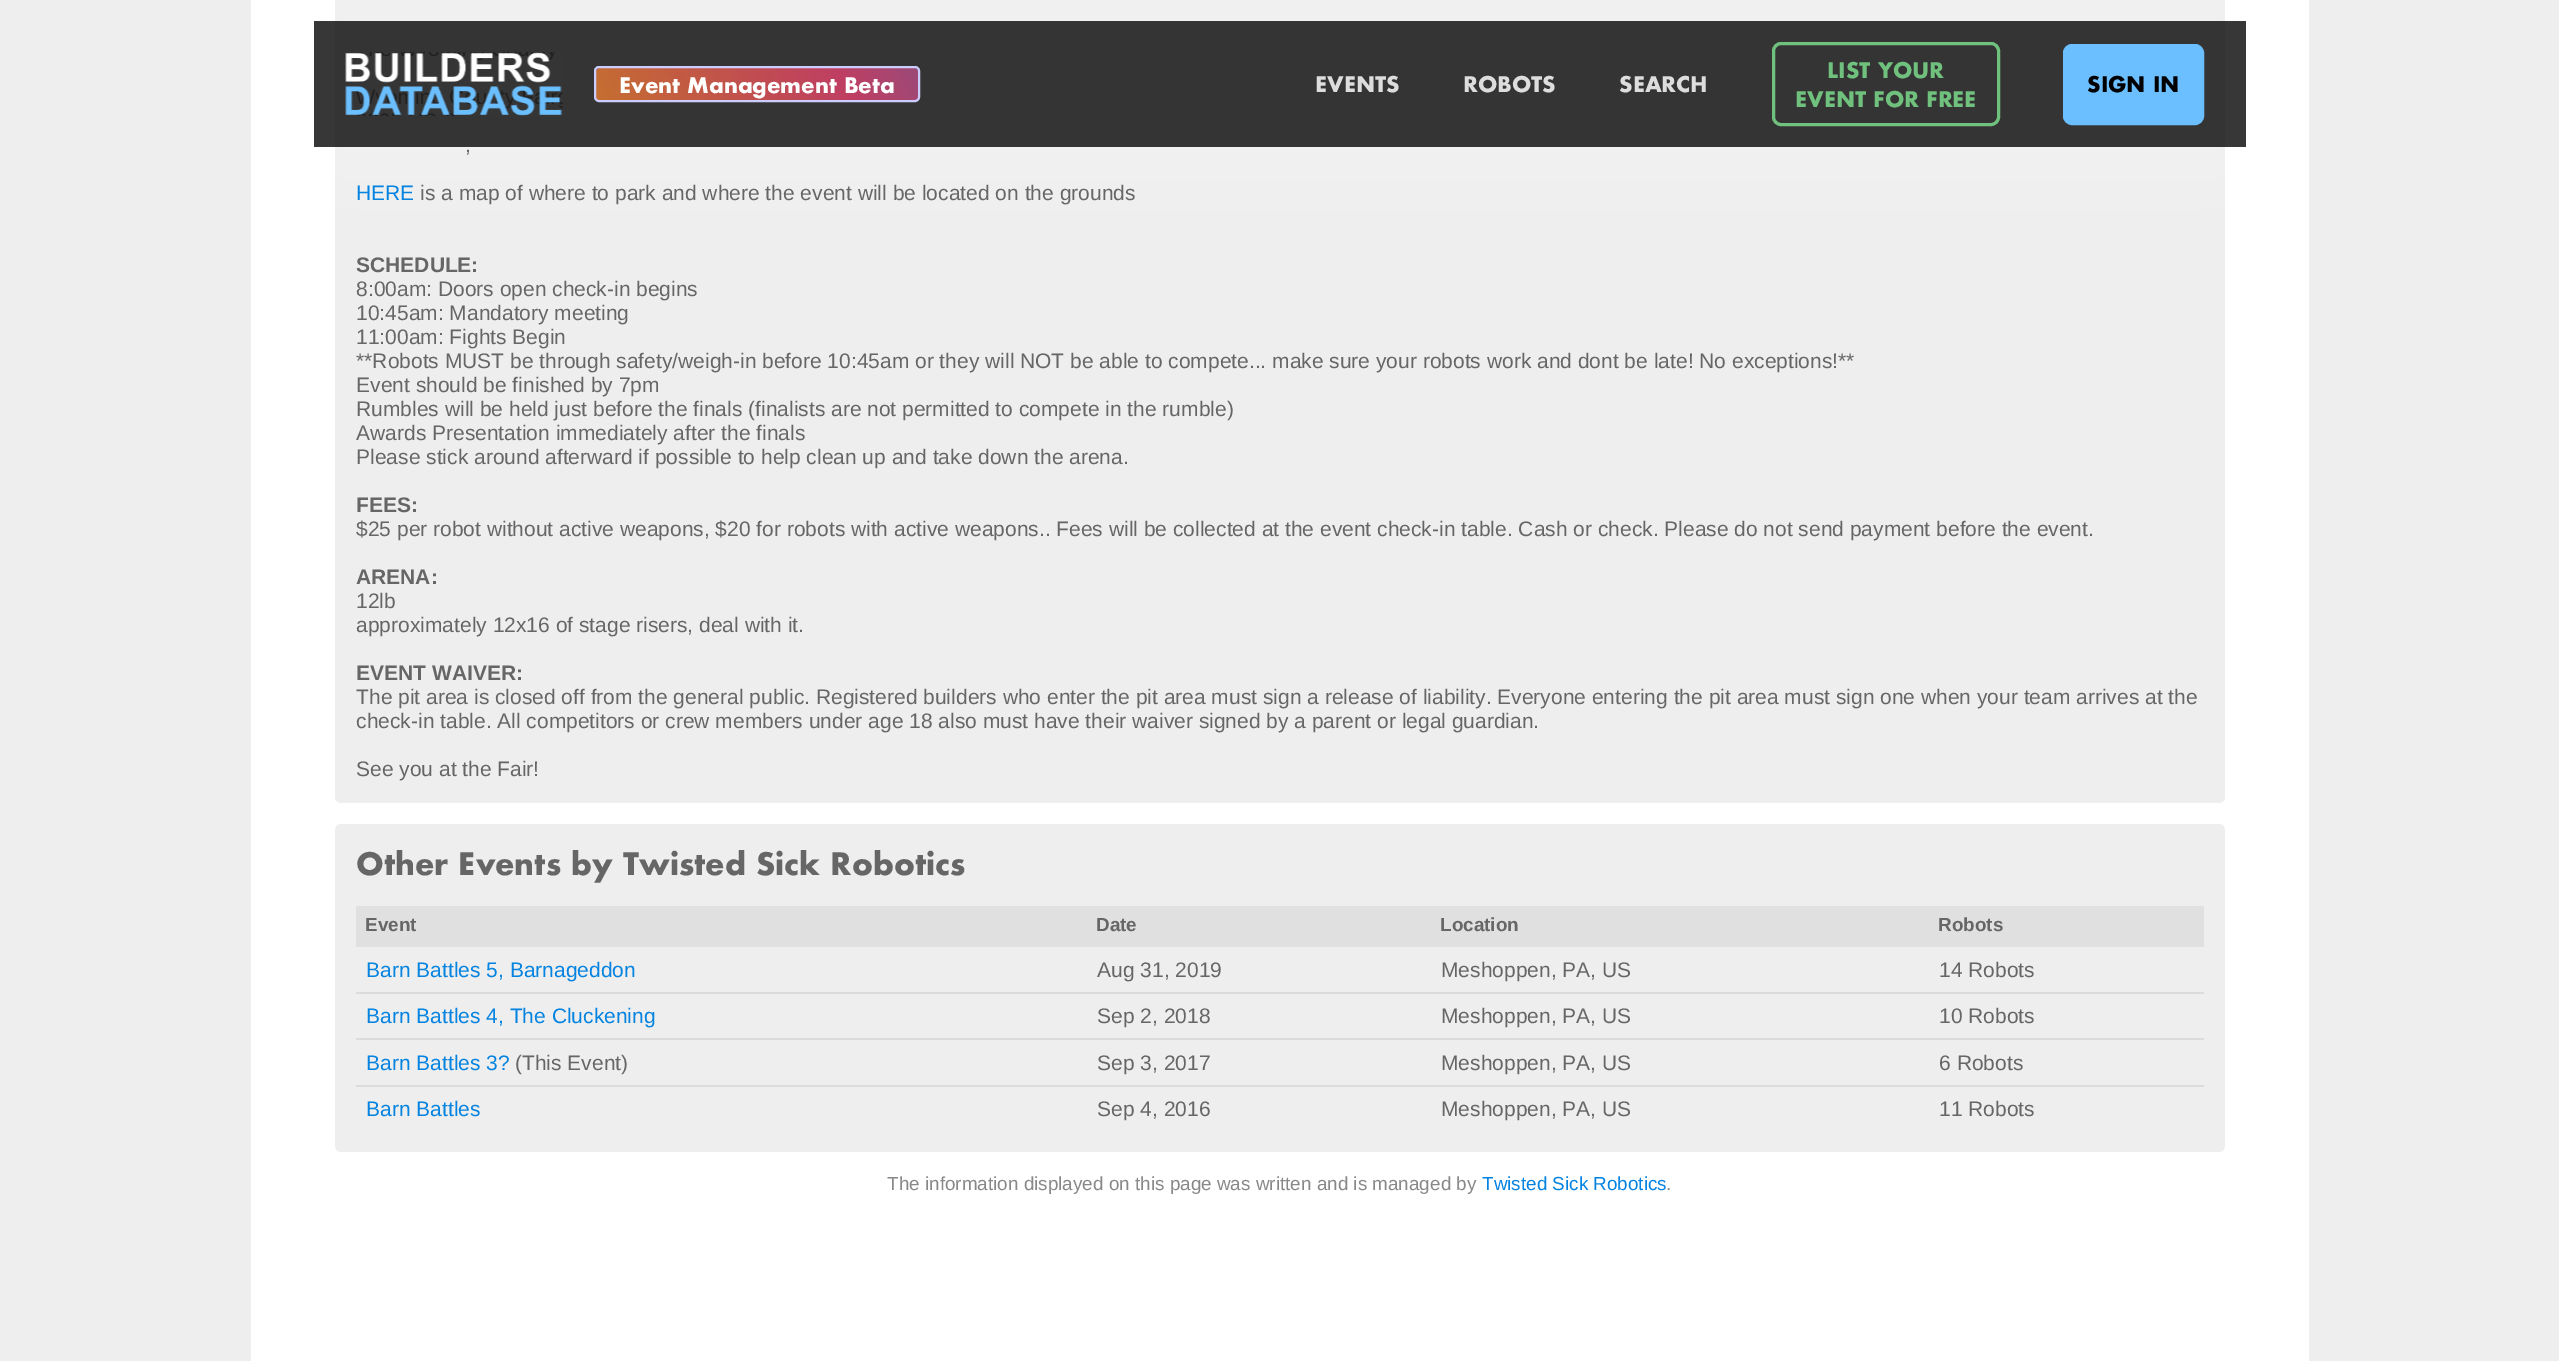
%!PS
<< /PageSize [2559 1361] /PageUsesTransparency true >> setpagedevice
/rgb { 3 { 255 div 3 1 roll } repeat setrgbcolor } def
/font { [ exch dup neg 0 0 3 -1 roll 0 0 ] selectfont } def
/alpha { dup .setfillconstantalpha .setstrokeconstantalpha } def
/roundrect { 5 dict begin { /r /h /w /y /x } { exch def } forall
  x r add y moveto x w add y 2 copy h add r arct x w add y h add x 1 index r arct
  x y h add x y r arct x y 2 copy exch w add exch r arct closepath end } def
/shadow { 12 dict begin { /a /b /q /h /w /y /x } { exch def } forall gsave /was 0 def
  9 -2 -9 { dup b mul 4 div /e exch def 1 sub .425 mul 2.718 exch exp 1 add a .99 .min exch div /now exch def
    1 1 now sub 1 was sub div sub alpha /was now def
    w h .min e 2 mul add 0 gt { x e sub y e sub w e 2 mul add h e 2 mul add
      q e add b .6 mul add w h .min 2 div e add .min 0 .max roundrect fill } if } for grestore end } def
/picture { 5 dict begin { /h /w /y /x /name } { exch def } forall
  gsave x y translate w h scale
  w h 8 [w 0 0 h 0 0] name (r) file false 3 colorimage grestore end } def
0 .pushpdf14devicefilter
0 1361 translate 1 -1 scale
4 setmiterlimit
238 238 238 rgb
0 0 2559 1361 rectfill
gsave 251 0 moveto 2309 0 lineto 2309 1361 lineto 251 1361 lineto closepath clip newpath 1280 -1983 translate 3540 3540 scale
<< /ShadingType 3 /ColorSpace /DeviceRGB /Coords [0 0 0 0 0 1] /Extend [true true] /Function << /FunctionType 3 /Domain [0 1] /Functions [<< /FunctionType 2 /Domain [0 1] /C0 [0.933 0.933 0.933] /C1 [0.933 0.933 0.933] /N 1 >> << /FunctionType 2 /Domain [0 1] /C0 [0.933 0.933 0.933] /C1 [1 1 1] /N 1 >> << /FunctionType 2 /Domain [0 1] /C0 [1 1 1] /C1 [1 1 1] /N 1 >>] /Bounds [0.12 0.27] /Encode [0 1 0 1 0 1] >> >> shfill grestore
335 -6 1890 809 6 roundrect fill
gsave
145 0 moveto 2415 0 lineto 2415 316 lineto 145 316 lineto closepath 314 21 moveto 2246 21 lineto 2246 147 lineto 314 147 lineto closepath eoclip newpath
255 255 255 rgb
326 33 1908 102 0 60 0.4 shadow
grestore
0.85 alpha
20 20 20 rgb
314 21 1932 126 rectfill
1 alpha
(img/1.rgb) 345 52 218 64 picture
gsave 596 68 322 33 5 roundrect clip newpath
<< /ShadingType 2 /ColorSpace /DeviceRGB /Coords [695 339 1463 -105] /Extend [true true] /Function << /FunctionType 3 /Domain [0 1] /Functions [<< /FunctionType 2 /Domain [0 1] /C0 [0.969 0.584 0.2] /C1 [0.953 0.439 0.333] /N 1 >> << /FunctionType 2 /Domain [0 1] /C0 [0.953 0.439 0.333] /C1 [0.937 0.306 0.482] /N 1 >> << /FunctionType 2 /Domain [0 1] /C0 [0.937 0.306 0.482] /C1 [0.631 0.4 0.671] /N 1 >> << /FunctionType 2 /Domain [0 1] /C0 [0.631 0.4 0.671] /C1 [0.314 0.451 0.722] /N 1 >> << /FunctionType 2 /Domain [0 1] /C0 [0.314 0.451 0.722] /C1 [0.063 0.596 0.678] /N 1 >> << /FunctionType 2 /Domain [0 1] /C0 [0.063 0.596 0.678] /C1 [0.027 0.702 0.608] /N 1 >> << /FunctionType 2 /Domain [0 1] /C0 [0.027 0.702 0.608] /C1 [0.435 0.729 0.51] /N 1 >>] /Bounds [0.14 0.29 0.43 0.57 0.71 0.86] /Encode [0 1 0 1 0 1 0 1 0 1 0 1 0 1] >> >> shfill grestore
0.2 alpha
0 0 0 rgb
595 67 324 34 4 roundrect fill
1 alpha
204 204 255 rgb
2 setlinewidth
595 67 324 34 4 roundrect stroke
112 192 126 rgb
3 setlinewidth
1773.5 43.5 225 81 7.5 roundrect stroke
107 191 255 rgb
2064.5 45.5 138 78 7.5 roundrect gsave fill grestore
stroke
238 238 238 rgb
335 824 1890 328 6 roundrect fill
[
  [356 906 1848 41 224 224 224]
  [356 992 1848 2 219 219 219]
  [356 1038 1848 2 219 219 219]
  [356 1085 1848 2 219 219 219]
] { aload pop rgb rectfill } forall
/Futura-Bold 21 font
255 255 255 rgb
619 93 moveto (Event Management Beta) show
221 221 221 rgb
[
  [(EVENTS) 1315 92]
  [(ROBOTS) 1463 92]
  [(SEARCH) 1619 92]
] { aload pop moveto show } forall
112 192 126 rgb
1827 78 moveto (LIST YOUR) show
1795 107 moveto (EVENT FOR FREE) show
0 0 0 rgb
2087 92 moveto (SIGN IN) show
/LiberationSans-Regular 21 font
102 102 102 rgb
465 152 moveto (,) show
4 131 224 rgb
356 200 moveto (HERE) show
102 102 102 rgb
420 200 moveto (is a map of where to park and where the event will be located on the grounds) show
/LiberationSans-Bold 21 font
356 272 moveto (SCHEDULE:) show
/LiberationSans-Regular 21 font
[
  [(8:00am: Doors open check-in begins) 356 296]
  [(10:45am: Mandatory meeting) 356 320]
  [(11:00am: Fights Begin) 356 344]
  [(**Robots MUST be through safety/weigh-in before 10:45am or they will NOT be able to compete... make sure your robots work and dont be late! No exceptions!**) 356 368]
  [(Event should be finished by 7pm) 356 392]
  [(Rumbles will be held just before the finals \(finalists are not permitted to compete in the rumble\)) 356 416]
  [(Awards Presentation immediately after the finals) 356 440]
  [(Please stick around afterward if possible to help clean up and take down the arena.) 356 464]
] { aload pop moveto show } forall
/LiberationSans-Bold 21 font
356 512 moveto (FEES:) show
/LiberationSans-Regular 21 font
356 536 moveto ($25 per robot without active weapons, $20 for robots with active weapons.. Fees will be collected at the event check-in table. Cash or check. Please do not send payment before the event.) show
/LiberationSans-Bold 21 font
356 584 moveto (ARENA:) show
/LiberationSans-Regular 21 font
356 608 moveto (12lb) show
356 632 moveto (approximately 12x16 of stage risers, deal with it.) show
/LiberationSans-Bold 21 font
356 680 moveto (EVENT WAIVER:) show
/LiberationSans-Regular 21 font
[
  [(The pit area is closed off from the general public. Registered builders who enter the pit area must sign a release of liability. Everyone entering the pit area must sign one when your team arrives at the) 356 704]
  [(check-in table. All competitors or crew members under age 18 also must have their waiver signed by a parent or legal guardian.) 356 728]
  [(See you at the Fair!) 356 776]
] { aload pop moveto show } forall
/Futura-Bold 30 font
356 875 moveto (Other Events by Twisted Sick Robotics) show
/LiberationSans-Bold 18.9 font
[
  [(Event) 365 931]
  [(Date) 1096 931]
  [(Location) 1440 931]
  [(Robots) 1938 931]
] { aload pop moveto show } forall
/LiberationSans-Regular 21 font
4 131 224 rgb
366 977 moveto (Barn Battles 5, Barnageddon) show
102 102 102 rgb
[
  [(Aug 31, 2019) 1097 977]
  [(Meshoppen, PA, US) 1441 977]
  [(14 Robots) 1939 977]
] { aload pop moveto show } forall
4 131 224 rgb
366 1023 moveto (Barn Battles 4, The Cluckening) show
102 102 102 rgb
[
  [(Sep 2, 2018) 1097 1023]
  [(Meshoppen, PA, US) 1441 1023]
  [(10 Robots) 1939 1023]
] { aload pop moveto show } forall
4 131 224 rgb
366 1070 moveto (Barn Battles 3?) show
102 102 102 rgb
[
  [(\(This Event\)) 515 1070]
  [(Sep 3, 2017) 1097 1070]
  [(Meshoppen, PA, US) 1441 1070]
  [(6 Robots) 1939 1070]
] { aload pop moveto show } forall
4 131 224 rgb
366 1116 moveto (Barn Battles) show
102 102 102 rgb
[
  [(Sep 4, 2016) 1097 1116]
  [(Meshoppen, PA, US) 1441 1116]
  [(11 Robots) 1939 1116]
] { aload pop moveto show } forall
/LiberationSans-Regular 18.9 font
136 136 136 rgb
887 1190 moveto (The information displayed on this page was written and is managed by) show
4 131 224 rgb
1482 1190 moveto (Twisted Sick Robotics) show
136 136 136 rgb
1666 1190 moveto (.) show
.poppdf14devicefilter showpage
